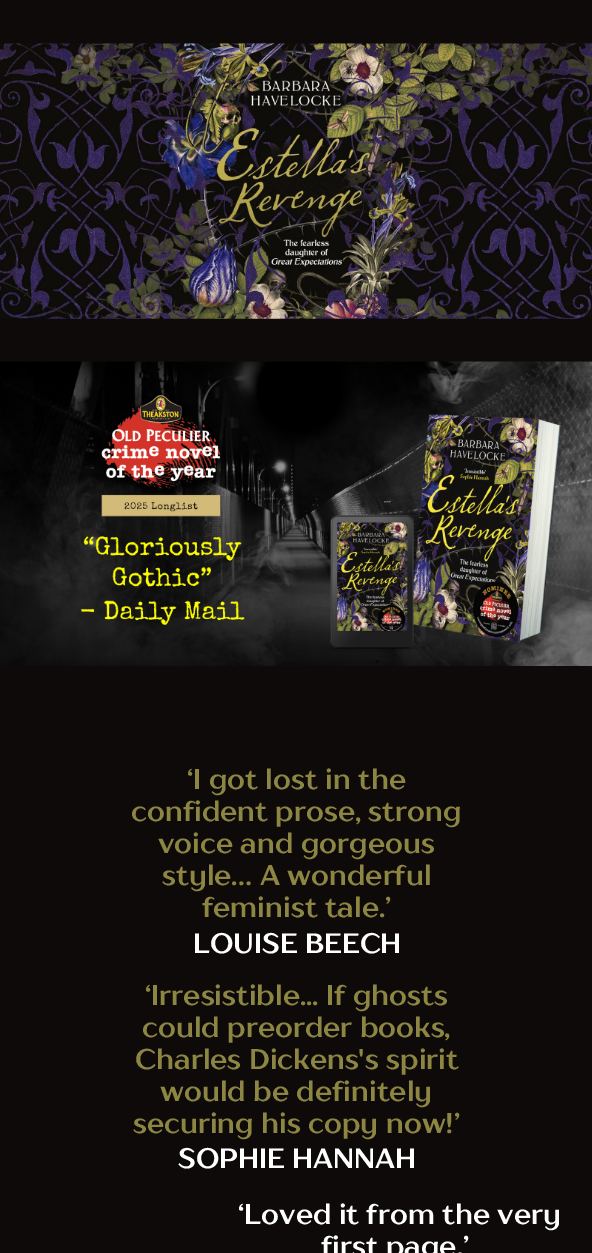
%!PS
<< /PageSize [592 1253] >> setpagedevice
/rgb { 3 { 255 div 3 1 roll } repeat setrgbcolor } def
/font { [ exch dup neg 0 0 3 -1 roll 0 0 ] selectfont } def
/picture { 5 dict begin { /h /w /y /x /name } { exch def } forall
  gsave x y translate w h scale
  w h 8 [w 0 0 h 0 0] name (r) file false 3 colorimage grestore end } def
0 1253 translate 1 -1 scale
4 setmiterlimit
14 10 10 rgb
0 0 592 1253 rectfill
(img/1.rgb) 0 43 592 276 picture
(img/2.rgb) 0 361 592 305 picture
/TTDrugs-Bold 28.4 font
141 134 66 rgb
[
  [(‘I got lost in the) 187 789]
  [(confident prose, strong) 131 821]
  [(voice and gorgeous) 158 853]
  [(style… A wonderful) 162 885]
  [(feminist tale.’) 202 917]
] { aload pop moveto show } forall
/TTDrugs-Bold 28 font
255 255 255 rgb
193 953 moveto (LOUISE BEECH) show
/TTDrugs-Bold 28.4 font
141 134 66 rgb
[
  [(‘Irresistible... If ghosts) 145 1005]
  [(could preorder books,) 142 1037]
  [(Charles Dickens's spirit) 135 1069]
  [(would be definitely) 160 1101]
  [(securing his copy now!’) 133 1133]
] { aload pop moveto show } forall
/TTDrugs-Bold 28 font
255 255 255 rgb
178 1168 moveto (SOPHIE HANNAH) show
/TTDrugs-Bold 28.4 font
238 1224 moveto (‘Loved it from the very) show
321 1256 moveto (first page.’) show
showpage
